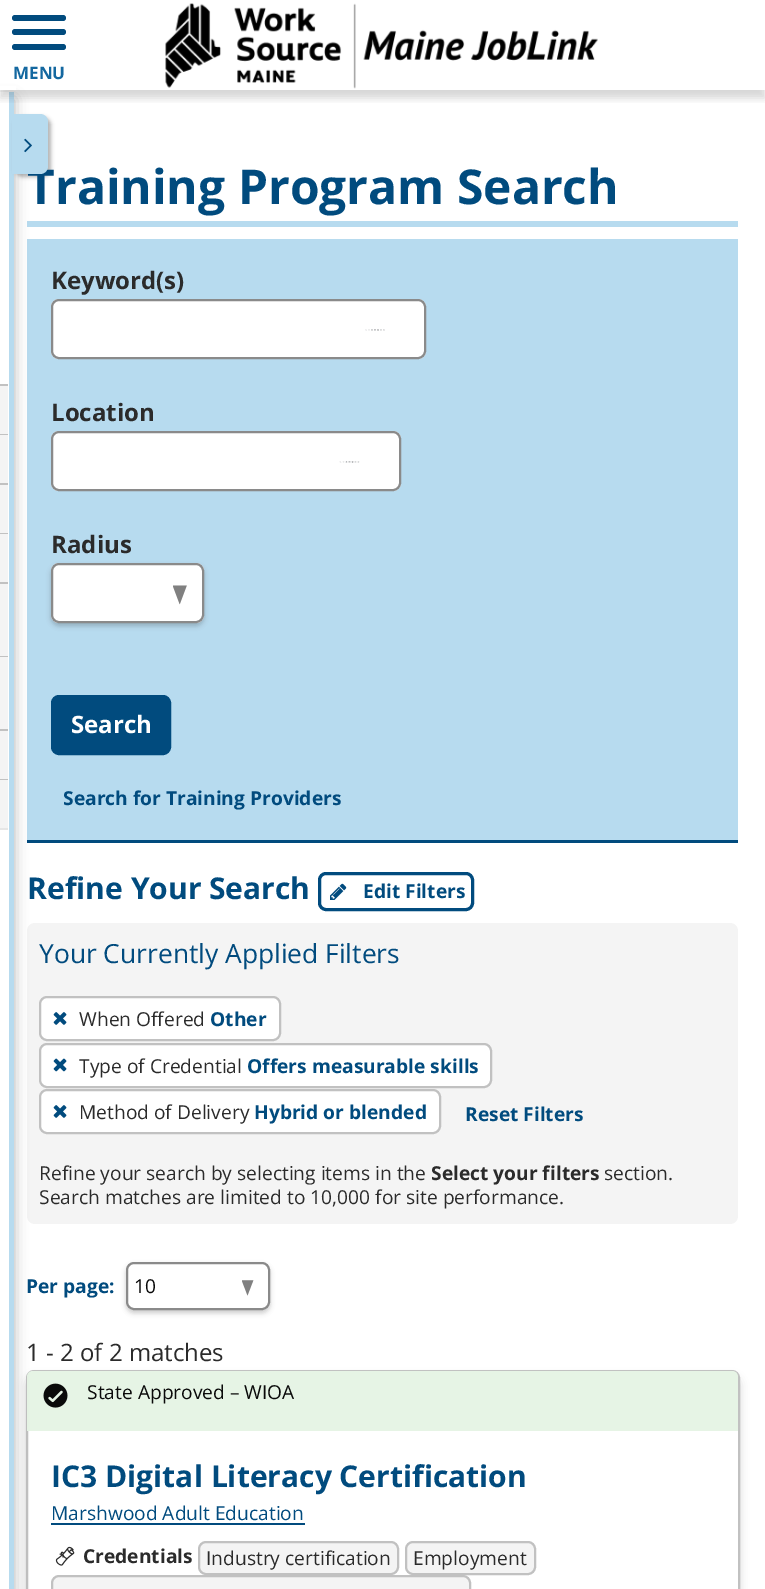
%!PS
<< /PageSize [765 1589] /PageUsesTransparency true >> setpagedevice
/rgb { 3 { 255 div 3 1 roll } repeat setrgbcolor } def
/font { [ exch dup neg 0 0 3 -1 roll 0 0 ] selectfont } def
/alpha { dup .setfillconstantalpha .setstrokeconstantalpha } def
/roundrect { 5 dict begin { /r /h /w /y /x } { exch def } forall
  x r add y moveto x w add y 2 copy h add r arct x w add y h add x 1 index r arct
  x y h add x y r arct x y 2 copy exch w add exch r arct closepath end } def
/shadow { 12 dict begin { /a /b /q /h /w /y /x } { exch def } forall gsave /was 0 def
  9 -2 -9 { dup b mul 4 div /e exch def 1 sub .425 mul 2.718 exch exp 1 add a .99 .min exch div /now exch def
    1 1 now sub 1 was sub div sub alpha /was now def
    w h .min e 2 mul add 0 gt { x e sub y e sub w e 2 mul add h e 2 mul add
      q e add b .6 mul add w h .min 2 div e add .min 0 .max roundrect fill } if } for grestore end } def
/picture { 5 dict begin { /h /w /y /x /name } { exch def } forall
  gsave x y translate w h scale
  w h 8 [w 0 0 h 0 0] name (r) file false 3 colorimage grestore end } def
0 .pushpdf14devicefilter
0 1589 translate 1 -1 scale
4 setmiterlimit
255 255 255 rgb
0 0 765 1589 rectfill
[
  [27 221 711 6 183 219 239]
  [27 840 711 3 1 75 126]
  [27 239 711 601 183 219 239]
] { aload pop rgb rectfill } forall
244 244 244 rgb
27 923 711 301 8 roundrect fill
0 0 0 rgb
26 1377 714 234 8 4.5 0.16 shadow
255 255 255 rgb
27 1371 712 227 7 roundrect gsave fill grestore
193 193 193 rgb
2 setlinewidth
stroke
230 244 229 rgb
33 1371 moveto 732 1371 lineto 735.5 1371 738 1373.5 738 1377 curveto 738 1431 lineto 27 1431 lineto 27 1377 lineto 27 1373.5 29.5 1371 33 1371 curveto closepath fill
0 0 0 rgb
-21 99 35 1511 0 7 0.3 shadow
[
  [0 86 16 4 255 255 255]
  [0 92 9 1497 255 255 255]
  [9 92 5 1497 183 219 239]
] { aload pop rgb rectfill } forall
gsave
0 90 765 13 rectclip
0 0 0 rgb
0 8 765 90 0 4.5 0.16 shadow
grestore
(img/1.rgb) 165 3 433 86 picture
1 75 126 rgb
12 29 54 6 3 roundrect fill
12 15 54 6 3 roundrect fill
12 44 54 6 3 roundrect fill
0 0 0 rgb
15 117 36 60 8 2 0.3 shadow
[
  [0 384 8 2 193 193 193]
  [0 386 8 48 244 244 244]
  [0 434 8 1 193 193 193]
  [0 435 8 48 244 244 244]
  [0 483 8 2 193 193 193]
  [0 485 8 48 244 244 244]
  [0 533 8 1 193 193 193]
  [0 534 8 48 244 244 244]
  [0 582 8 2 193 193 193]
  [0 584 8 72 244 244 244]
  [0 656 8 1 193 193 193]
  [0 657 8 72 244 244 244]
  [0 729 8 2 193 193 193]
  [0 731 8 48 244 244 244]
  [0 779 8 1 193 193 193]
  [0 780 8 50 244 244 244]
  [0 828 8 2 230 230 230]
] { aload pop rgb rectfill } forall
255 255 255 rgb
51 299 375 60 8 roundrect fill
(img/3.rgb) 365 329 20 2 picture
138 138 138 rgb
52 300 373 58 7 roundrect stroke
255 255 255 rgb
51 431 350 60 8 roundrect fill
(img/4.rgb) 339 461 21 2 picture
138 138 138 rgb
52 432 348 58 7 roundrect stroke
0 0 0 rgb
51 566 153 60 8 2.5 0.2 shadow
255 255 255 rgb
51 563 153 60 8 roundrect fill
(img/5.rgb) 173 585 14 20 picture
138 138 138 rgb
52 564 151 58 7 roundrect stroke
1 75 126 rgb
52.5 696.5 117 57 6.5 roundrect gsave fill grestore
3 setlinewidth
stroke
319.5 873.5 153 36 6.5 roundrect stroke
(img/6.rgb) 330 883 17 17 picture
255 255 255 rgb
40 997 240 43 7 roundrect gsave fill grestore
193 193 193 rgb
2 setlinewidth
stroke
(img/7.rgb) 53 1012 14 13 picture
255 255 255 rgb
40 1044 451 43 7 roundrect gsave fill grestore
193 193 193 rgb
stroke
(img/8.rgb) 53 1058 14 14 picture
255 255 255 rgb
40 1090 400 43 7 roundrect gsave fill grestore
193 193 193 rgb
stroke
(img/7.rgb) 53 1105 14 13 picture
0 0 0 rgb
126 1265 144 48 8 2.5 0.2 shadow
255 255 255 rgb
126 1262 144 48 8 roundrect fill
(img/9.rgb) 242 1280 12 16 picture
138 138 138 rgb
127 1263 142 46 7 roundrect stroke
(img/10.rgb) 43 1383 25 25 picture
1 75 126 rgb
51 1523 254 2 rectfill
(img/11.rgb) 55 1546 20 20 picture
244 244 244 rgb
199 1542 199 32 7 roundrect gsave fill grestore
193 193 193 rgb
stroke
244 244 244 rgb
406 1542 129 32 7 roundrect gsave fill grestore
193 193 193 rgb
stroke
244 244 244 rgb
52 1576 418 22 7 roundrect gsave fill grestore
193 193 193 rgb
stroke
/OpenSans-Bold 17 font
20 104 160 rgb
13 79 moveto (MENU) show
/OpenSans-Bold 48 font
1 75 126 rgb
27 204 moveto (Training Program Search) show
183 219 239 rgb
12 114 moveto 40 114 lineto 44.5 114 48 117.5 48 122 curveto 48 166 lineto 48 170.5 44.5 174 40 174 curveto 12 174 lineto closepath fill
(img/2.rgb) 24 138 8 15 picture
/OpenSans-Bold 24 font
43 43 43 rgb
[
  [(Keyword\(s\)) 51 289]
  [(Location) 51 421]
  [(Radius) 51 553]
] { aload pop moveto show } forall
255 255 255 rgb
71 733 moveto (Search) show
/OpenSans-Bold 19.2 font
1 75 126 rgb
63 805 moveto (Search for Training Providers) show
/OpenSans-Bold 30 font
27 899 moveto (Refine Your Search) show
/OpenSans-Bold 19.2 font
363 898 moveto (Edit Filters) show
/OpenSans-Regular 26.4 font
39 963 moveto (Your Currently Applied Filters) show
/OpenSans-Regular 19.2 font
43 43 43 rgb
79 1026 moveto (When Offered) show
/OpenSans-Bold 19.2 font
1 75 126 rgb
210 1026 moveto (Other) show
/OpenSans-Regular 19.2 font
43 43 43 rgb
79 1073 moveto (Type of Credential) show
/OpenSans-Bold 19.2 font
1 75 126 rgb
247 1073 moveto (Offers measurable skills) show
/OpenSans-Regular 19.2 font
43 43 43 rgb
79 1119 moveto (Method of Delivery) show
/OpenSans-Bold 19.2 font
1 75 126 rgb
254 1119 moveto (Hybrid or blended) show
465 1121 moveto (Reset Filters) show
/OpenSans-Regular 19.2 font
43 43 43 rgb
39 1180 moveto (Refine your search by selecting items in the) show
/OpenSans-Bold 19.2 font
431 1180 moveto (Select your filters) show
/OpenSans-Regular 19.2 font
604 1180 moveto (section.) show
39 1204 moveto (Search matches are limited to 10,000 for site performance.) show
/OpenSans-Bold 19.2 font
1 75 126 rgb
26 1293 moveto (Per page:) show
/OpenSans-Regular 19.2 font
10 10 10 rgb
134 1293 moveto (10) show
/OpenSans-Regular 24 font
43 43 43 rgb
26 1361 moveto (1 - 2 of 2 matches) show
/OpenSans-Regular 19.2 font
10 10 10 rgb
87 1399 moveto (State Approved – WIOA) show
/OpenSans-Bold 30 font
1 75 126 rgb
51 1487 moveto (IC3 Digital Literacy Certification) show
/OpenSans-Regular 19.2 font
51 1520 moveto (Marshwood Adult Education) show
/OpenSans-Bold 19.2 font
43 43 43 rgb
83 1563 moveto (Credentials) show
/OpenSans-Regular 19.2 font
206 1565 moveto (Industry certification) show
413 1565 moveto (Employment) show
.poppdf14devicefilter showpage
